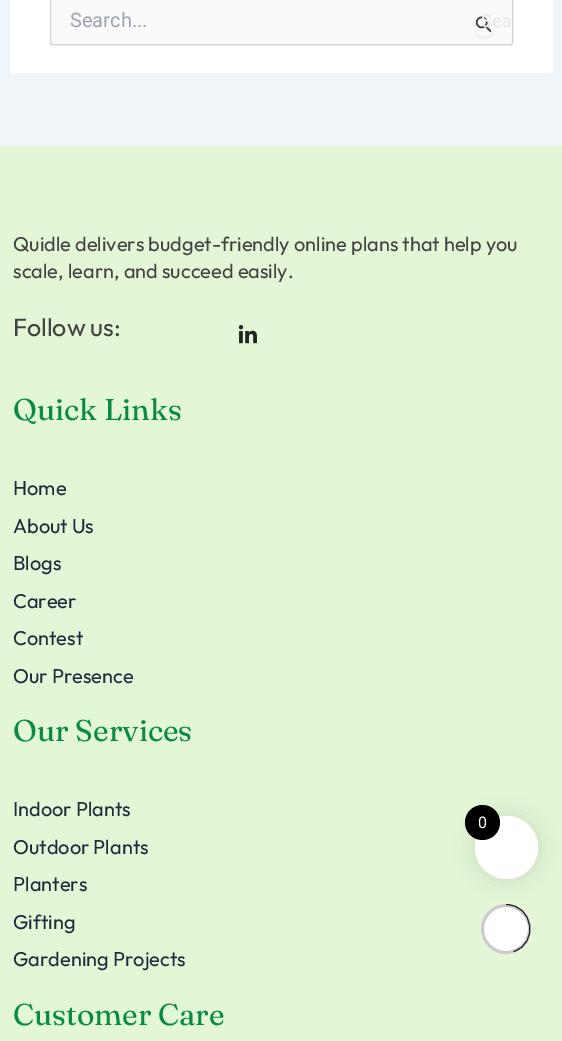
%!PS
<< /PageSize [562 1041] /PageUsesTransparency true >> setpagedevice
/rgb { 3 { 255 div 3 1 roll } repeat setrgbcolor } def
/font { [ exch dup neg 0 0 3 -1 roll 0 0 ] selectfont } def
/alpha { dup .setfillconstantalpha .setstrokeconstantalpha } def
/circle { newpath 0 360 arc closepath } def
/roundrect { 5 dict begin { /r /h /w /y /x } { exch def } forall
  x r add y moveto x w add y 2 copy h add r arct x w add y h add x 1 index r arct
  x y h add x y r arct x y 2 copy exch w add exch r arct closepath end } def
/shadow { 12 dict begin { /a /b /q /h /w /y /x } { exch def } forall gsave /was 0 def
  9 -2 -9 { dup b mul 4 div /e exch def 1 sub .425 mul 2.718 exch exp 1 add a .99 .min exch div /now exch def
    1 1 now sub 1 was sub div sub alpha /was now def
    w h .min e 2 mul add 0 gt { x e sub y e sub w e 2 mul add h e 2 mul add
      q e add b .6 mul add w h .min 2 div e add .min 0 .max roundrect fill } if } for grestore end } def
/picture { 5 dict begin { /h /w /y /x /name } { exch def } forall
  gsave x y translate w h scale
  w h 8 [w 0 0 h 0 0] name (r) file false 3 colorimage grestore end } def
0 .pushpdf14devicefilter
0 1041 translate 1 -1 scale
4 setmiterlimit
240 245 250 rgb
0 0 562 1041 rectfill
255 255 255 rgb
10 0 543 73 rectfill
0 0 0 rgb
50 -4 463 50 2.5 1 0.05 shadow
250 250 250 rgb
50.5 -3.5 462 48 2 roundrect gsave fill grestore
209 213 219 rgb
stroke
gsave
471 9 moveto 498 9 lineto 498 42 lineto 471 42 lineto closepath 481 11 moveto 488 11 lineto 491.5 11 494 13.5 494 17 curveto 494 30 lineto 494 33.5 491.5 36 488 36 curveto 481 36 lineto 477.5 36 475 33.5 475 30 curveto 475 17 lineto 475 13.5 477.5 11 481 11 curveto closepath eoclip newpath
0 0 0 rgb
475 13 19 25 6 1 0.05 shadow
grestore
(img/1.rgb) 475 16 16 17 picture
227 247 214 rgb
0 146 562 895 rectfill
(img/2.rgb) 239 325 18 19 picture
255 255 255 rgb
506 929 23.5 circle gsave fill grestore
204 204 204 rgb
3 setlinewidth
stroke
31 32 41 rgb
1 setlinewidth
506 904.5 moveto 533.5 904.5 539 944 513.5 951.5 curveto stroke
0 0 0 rgb
473 814 67 67 33.5 9.5 0.1 shadow
255 255 255 rgb
506.5 847.5 31.5 circle fill
0 0 0 rgb
482.5 822.5 17.5 circle fill
/Roboto-Regular 20 font
156 163 175 rgb
70 27 moveto (Search...) show
/Roboto-Medium 18 font
233 233 233 rgb
481 27 moveto (Sea) show
/Outfit-Regular 20 font
66 66 66 rgb
13 251 moveto (Quidle delivers budget-friendly online plans that help you) show
13 278 moveto (scale, learn, and succeed easily.) show
/Outfit-Regular 25 font
13 336 moveto (Follow us:) show
/Fraunces-Regular 30 font
6 139 63 rgb
13 420 moveto (Quick Links) show
/Outfit-Regular 20 font
30 41 59 rgb
[
  [(Home) 13 495]
  [(About Us) 13 533]
  [(Blogs) 13 570]
  [(Career) 13 608]
  [(Contest) 13 645]
  [(Our Presence) 13 683]
] { aload pop moveto show } forall
/Fraunces-Regular 30 font
6 139 63 rgb
13 741 moveto (Our Services) show
/Outfit-Regular 20 font
30 41 59 rgb
[
  [(Indoor Plants) 13 816]
  [(Outdoor Plants) 13 854]
  [(Planters) 13 891]
  [(Gifting) 13 929]
  [(Gardening Projects) 13 966]
] { aload pop moveto show } forall
/Fraunces-Regular 30 font
6 139 63 rgb
13 1025 moveto (Customer Care) show
/Roboto-Regular 16 font
255 255 255 rgb
478 828 moveto (0) show
.poppdf14devicefilter showpage
